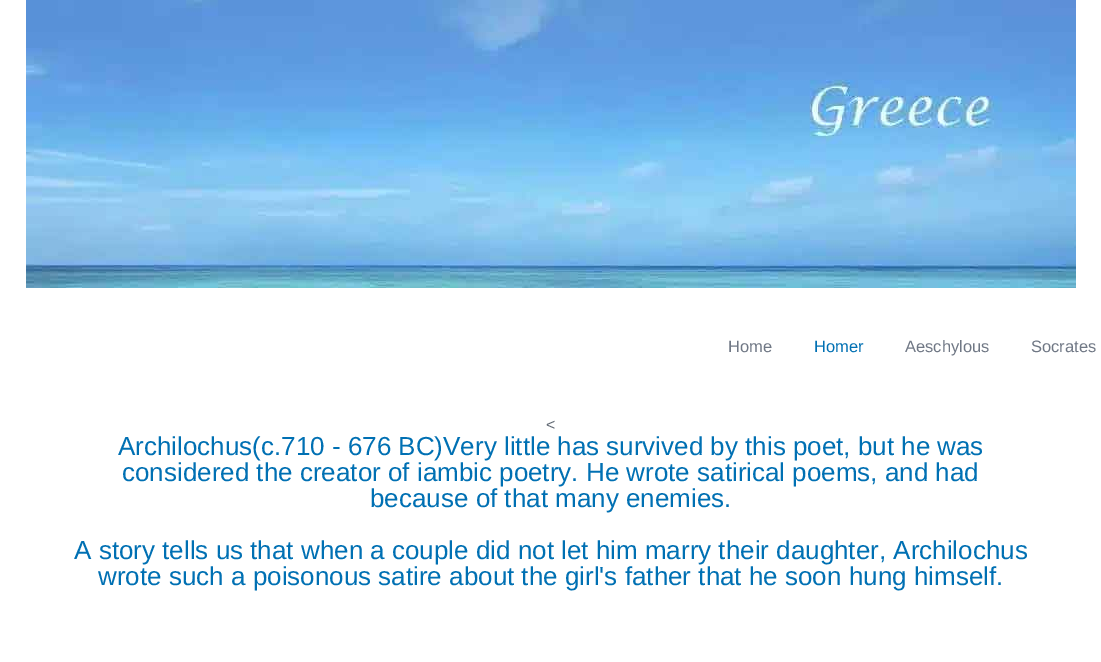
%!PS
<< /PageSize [1101 662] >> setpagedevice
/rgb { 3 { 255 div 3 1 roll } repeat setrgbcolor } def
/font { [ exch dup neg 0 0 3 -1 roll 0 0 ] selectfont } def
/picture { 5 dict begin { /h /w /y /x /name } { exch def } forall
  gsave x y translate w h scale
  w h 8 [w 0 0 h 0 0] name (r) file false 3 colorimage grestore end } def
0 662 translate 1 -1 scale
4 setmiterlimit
255 255 255 rgb
0 0 1101 662 rectfill
(img/1.rgb) 26 0 1050 288 picture
/LiberationSans-Regular 16.5 font
112 120 133 rgb
728 352 moveto (Home) show
0 112 179 rgb
814 352 moveto (Homer) show
112 120 133 rgb
905 352 moveto (Aeschylous) show
1031 352 moveto (Socrates) show
/LiberationSans-Regular 16 font
99 107 117 rgb
546 430 moveto (<) show
/LiberationSans-Regular 26 font
0 112 179 rgb
[
  [(Archilochus\(c.710 - 676 BC\)Very little has survived by this poet, but he was) 118 455]
  [(considered the creator of iambic poetry. He wrote satirical poems, and had) 122 481]
  [(because of that many enemies.) 370 507]
  [(A story tells us that when a couple did not let him marry their daughter, Archilochus) 74 559]
  [(wrote such a poisonous satire about the girl's father that he soon hung himself.) 98 585]
] { aload pop moveto show } forall
showpage
